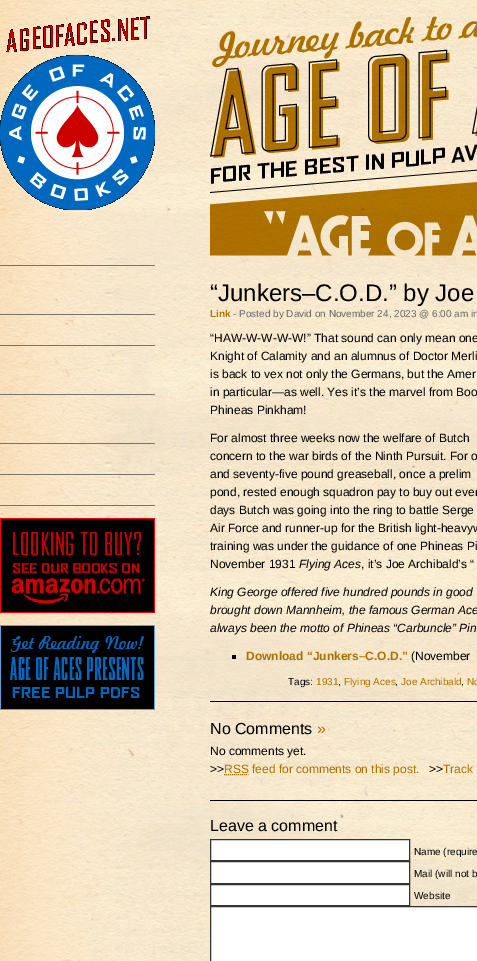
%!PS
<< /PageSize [477 961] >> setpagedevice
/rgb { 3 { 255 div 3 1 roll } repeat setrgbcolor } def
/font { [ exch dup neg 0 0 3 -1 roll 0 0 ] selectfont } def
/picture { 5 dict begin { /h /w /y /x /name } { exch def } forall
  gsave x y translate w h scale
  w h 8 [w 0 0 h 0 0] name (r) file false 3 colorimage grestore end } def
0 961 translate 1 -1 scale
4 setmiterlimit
255 255 255 rgb
0 0 477 961 rectfill
(img/1.rgb) 0 0 477 961 picture
(img/2.rgb) 0 16 155 194 picture
[
  [0 265 155 1 120 116 105]
  [0 314 155 1 120 116 105]
  [0 345 155 1 120 116 105]
  [0 394 155 1 120 116 105]
  [0 443 155 1 120 116 105]
  [0 474 155 1 120 116 105]
  [0 505 155 1 120 116 105]
] { aload pop rgb rectfill } forall
(img/3.rgb) 0 518 155 95 picture
(img/4.rgb) 0 625 155 85 picture
(img/5.rgb) 210 16 267 194 picture
(img/6.rgb) 210 210 267 46 picture
0 0 0 rgb
232 655 4 4 rectfill
210 701 267 1 rectfill
170 114 0 rgb
[1 1] 0 setdash
224 774.5 moveto 248.5 774.5 lineto stroke
0 0 0 rgb
210 800 267 1 rectfill
255 255 255 rgb
210.5 839.5 moveto 409.5 839.5 lineto 409.5 860.5 lineto 210.5 860.5 lineto closepath gsave fill grestore
51 51 51 rgb
[] 0 setdash
stroke
255 255 255 rgb
210.5 861.5 moveto 409.5 861.5 lineto 409.5 883.5 lineto 210.5 883.5 lineto closepath gsave fill grestore
51 51 51 rgb
stroke
255 255 255 rgb
210.5 884.5 moveto 409.5 884.5 lineto 409.5 905.5 lineto 210.5 905.5 lineto closepath gsave fill grestore
51 51 51 rgb
stroke
255 255 255 rgb
210.5 906.5 moveto 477.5 906.5 lineto 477.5 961.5 lineto 210.5 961.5 lineto closepath gsave fill grestore
51 51 51 rgb
stroke
/LiberationSans-Regular 24 font
0 0 0 rgb
210 301 moveto (“Junkers–C.O.D.” by Joe) show
/LiberationSans-Bold 10 font
170 114 0 rgb
210 317 moveto (Link) show
/LiberationSans-Regular 10 font
102 102 102 rgb
233 317 moveto (- Posted by David on November 24, 2023 @ 6:00 am in) show
/LiberationSans-Regular 12 font
0 0 0 rgb
[
  [(“HAW-W-W-W-W!” That sound can only mean one) 210 342]
  [(Knight of Calamity and an alumnus of Doctor Merli) 210 360]
  [(is back to vex not only the Germans, but the Amer) 210 378]
  [(in particular—as well. Yes it’s the marvel from Boo) 210 396]
  [(Phineas Pinkham!) 210 414]
  [(For almost three weeks now the welfare of Butch) 210 442]
  [(concern to the war birds of the Ninth Pursuit. For o) 210 460]
  [(and seventy-five pound greaseball, once a prelim) 210 478]
  [(pond, rested enough squadron pay to buy out ever) 210 496]
  [(days Butch was going into the ring to battle Serge) 210 514]
  [(Air Force and runner-up for the British light-heavyw) 210 532]
  [(training was under the guidance of one Phineas Pi) 210 550]
  [(November 1931) 210 568]
] { aload pop moveto show } forall
/LiberationSans-Italic 12 font
299 568 moveto (Flying Aces) show
/LiberationSans-Regular 12 font
361 568 moveto (, it’s Joe Archibald’s “) show
/LiberationSans-Italic 12 font
[
  [(King George offered five hundred pounds in good) 210 596]
  [(brought down Mannheim, the famous German Ace) 210 614]
  [(always been the motto of Phineas “Carbuncle” Pin) 210 632]
] { aload pop moveto show } forall
/LiberationSans-Bold 12 font
170 114 0 rgb
246 660 moveto (Download “Junkers–C.O.D.”) show
/LiberationSans-Regular 12 font
0 0 0 rgb
411 660 moveto (\(November) show
/LiberationSans-Regular 10 font
288 685 moveto (Tags:) show
170 114 0 rgb
316 685 moveto (1931) show
0 0 0 rgb
338 685 moveto (,) show
170 114 0 rgb
344 685 moveto (Flying Aces) show
0 0 0 rgb
395 685 moveto (,) show
170 114 0 rgb
401 685 moveto (Joe Archibald) show
0 0 0 rgb
461 685 moveto (,) show
170 114 0 rgb
467 685 moveto (No) show
/LiberationSans-Regular 16 font
0 0 0 rgb
210 734 moveto (No Comments) show
170 114 0 rgb
317 734 moveto (») show
/LiberationSans-Regular 12 font
0 0 0 rgb
210 755 moveto (No comments yet.) show
210 773 moveto (>>) show
170 114 0 rgb
224 773 moveto (RSS feed for comments on this post.) show
0 0 0 rgb
429 773 moveto (>>) show
170 114 0 rgb
443 773 moveto (Track) show
/LiberationSans-Regular 16 font
0 0 0 rgb
210 831 moveto (Leave a comment) show
/LiberationSans-Regular 10 font
[
  [(Name \(require) 414 855]
  [(Mail \(will not b) 414 877]
  [(Website) 414 899]
] { aload pop moveto show } forall
showpage
